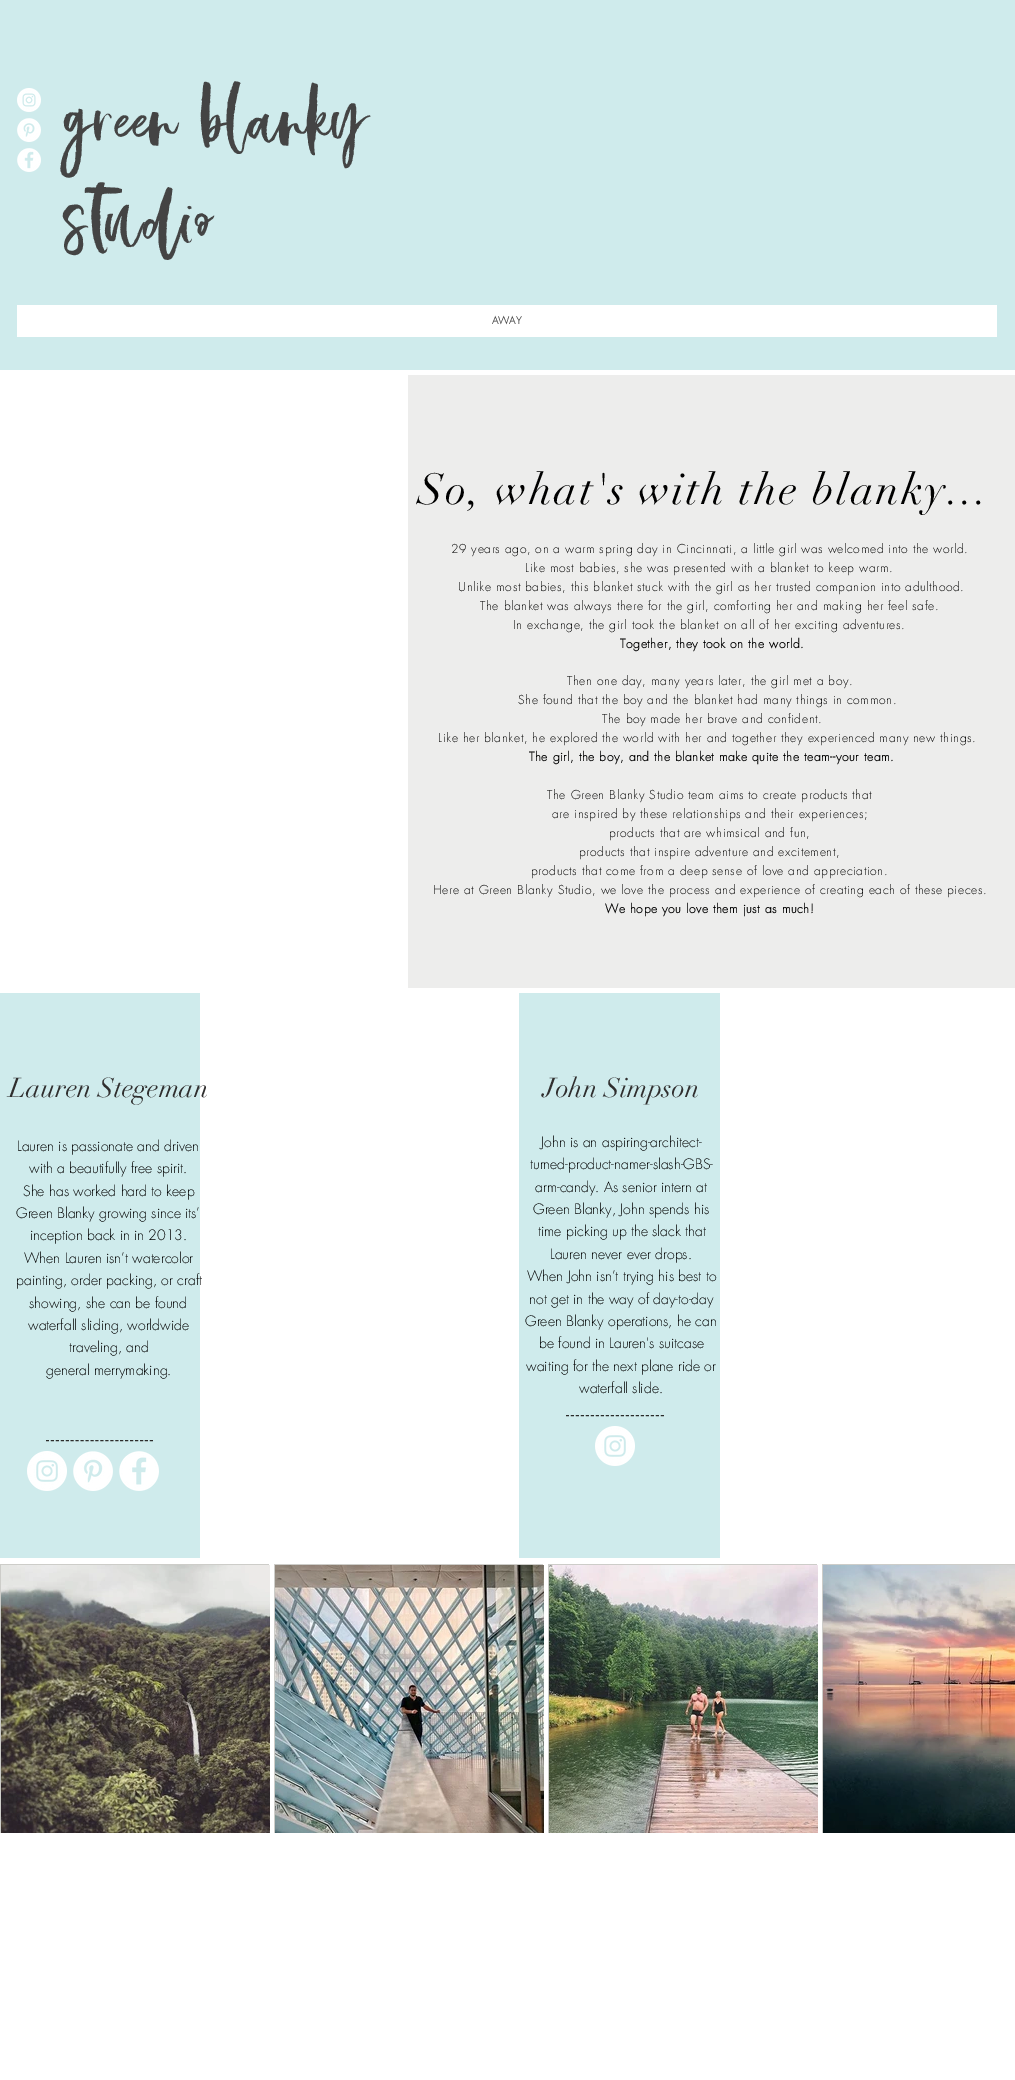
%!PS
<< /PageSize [1015 2080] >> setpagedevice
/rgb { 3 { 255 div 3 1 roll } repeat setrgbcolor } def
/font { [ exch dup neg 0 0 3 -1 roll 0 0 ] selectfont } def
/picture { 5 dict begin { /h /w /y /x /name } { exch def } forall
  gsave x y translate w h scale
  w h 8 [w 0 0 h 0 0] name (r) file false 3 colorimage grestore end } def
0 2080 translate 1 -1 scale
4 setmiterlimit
255 255 255 rgb
0 0 1015 2080 rectfill
207 235 236 rgb
0 0 1015 370 rectfill
(img/1.rgb) 17 88 24 24 picture
(img/2.rgb) 17 118 24 24 picture
(img/3.rgb) 17 148 24 24 picture
[
  [17 305 980 32 255 255 255]
  [408 375 607 613 237 237 236]
  [0 993 200 565 207 235 236]
] { aload pop rgb rectfill } forall
44 44 43 rgb
[3 1.95] 0 setdash
46 1440.5 moveto 153 1440.5 lineto stroke
(img/4.rgb) 27 1451 40 40 picture
(img/5.rgb) 73 1451 40 40 picture
(img/6.rgb) 119 1451 40 40 picture
207 235 236 rgb
519 993 201 565 rectfill
44 44 43 rgb
[3 2] 0 setdash
566 1415.5 moveto 664 1415.5 lineto stroke
(img/4.rgb) 595 1426 40 40 picture
205 205 201 rgb
0 1564 269 269 rectfill
(img/7.rgb) 1 1565 269 268 picture
274 1564 269 269 rectfill
(img/8.rgb) 275 1565 269 268 picture
548 1564 269 269 rectfill
(img/9.rgb) 549 1565 269 268 picture
822 1564 193 269 rectfill
(img/10.rgb) 823 1565 192 268 picture
/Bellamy-Regular 67 font
68 68 68 rgb
64 166 moveto -2 0 32 (green blanky) widthshow
64 266 moveto (studio) show
/futura-Bold 10 font
492 324 moveto (AWAY) show
/didot-Regular 43 font
0 0 0 rgb
418 504 moveto 2.15 0 (So, what's with the blanky...) ashow
/futura-Light 12 font
451 553 moveto 0.6 0 (29 years ago, on a warm spring day in Cincinnati, a little girl was welcomed into the world.) ashow
525 572 moveto 0.6 0 (Like most babies, she was presented with a blanket to keep warm.) ashow
458 591 moveto 0.6 0 (Unlike most babies, this blanket stuck with the girl as her trusted companion into adulthood.) ashow
480 610 moveto 0.6 0 (The blanket was always there for the girl, comforting her and making her feel safe.) ashow
513 629 moveto 0.6 0 (In exchange, the girl took the blanket on all of her exciting adventures.) ashow
/futura-Bold 12 font
620 648 moveto 0.6 0 (Together, they took on the world.) ashow
/futura-Light 12 font
567 685 moveto 0.6 0 (Then one day, many years later, the girl met a boy.) ashow
518 704 moveto 0.6 0 (She found that the boy and the blanket had many things in common.) ashow
602 723 moveto 0.6 0 (The boy made her brave and confident.) ashow
438 742 moveto 0.6 0 (Like her blanket, he explored the world with her and together they experienced many new things.) ashow
/futura-Bold 12 font
529 761 moveto 0.6 0 (The girl, the boy, and the blanket make quite the team--your team.) ashow
/futura-Light 12 font
547 799 moveto 0.6 0 (The Green Blanky Studio team aims to create products that) ashow
552 818 moveto 0.6 0 (are inspired by these relationships and their experiences;) ashow
609 837 moveto 0.6 0 (products that are whimsical and fun,) ashow
579 856 moveto 0.6 0 (products that inspire adventure and excitement,) ashow
531 875 moveto 0.6 0 (products that come from a deep sense of love and appreciation.) ashow
433 894 moveto 0.6 0 (Here at Green Blanky Studio, we love the process and experience of creating each of these pieces.) ashow
/futura-Bold 12 font
605 913 moveto 0.6 0 (We hope you love them just as much!) ashow
/didot-Regular 27 font
47 46 46 rgb
9 1097 moveto (Lauren Stegeman) show
/futura-Light 14 font
0 0 0 rgb
[
  [(Lauren is passionate and driven) 17 1151]
  [(with a beautifully free spirit.) 29 1173]
  [(She has worked hard to keep) 23 1196]
  [(Green Blanky growing since its’) 16 1218]
  [(inception back in in 2013.) 30 1240]
  [(When Lauren isn’t watercolor) 24 1263]
  [(painting, order packing, or craft) 16 1285]
  [(showing, she can be found) 29 1308]
  [(waterfall sliding, worldwide) 28 1330]
  [(traveling, and) 69 1352]
  [(general merrymaking.) 46 1375]
] { aload pop moveto show } forall
/didot-Regular 27 font
47 46 46 rgb
543 1097 moveto (John Simpson) show
/futura-Light 14 font
0 0 0 rgb
[
  [(John is an aspiring-architect-) 541 1147]
  [(turned-product-namer-slash-GBS-) 530 1169]
  [(arm-candy. As senior intern at) 535 1192]
  [(Green Blanky, John spends his) 533 1214]
  [(time picking up the slack that) 538 1236]
  [(Lauren never ever drops.) 550 1259]
  [(When John isn’t trying his best to) 527 1281]
  [(not get in the way of day-to-day) 529 1304]
  [(Green Blanky operations, he can) 525 1326]
  [(be found in Lauren's suitcase) 539 1348]
  [(waiting for the next plane ride or) 526 1371]
  [(waterfall slide.) 579 1393]
] { aload pop moveto show } forall
showpage
